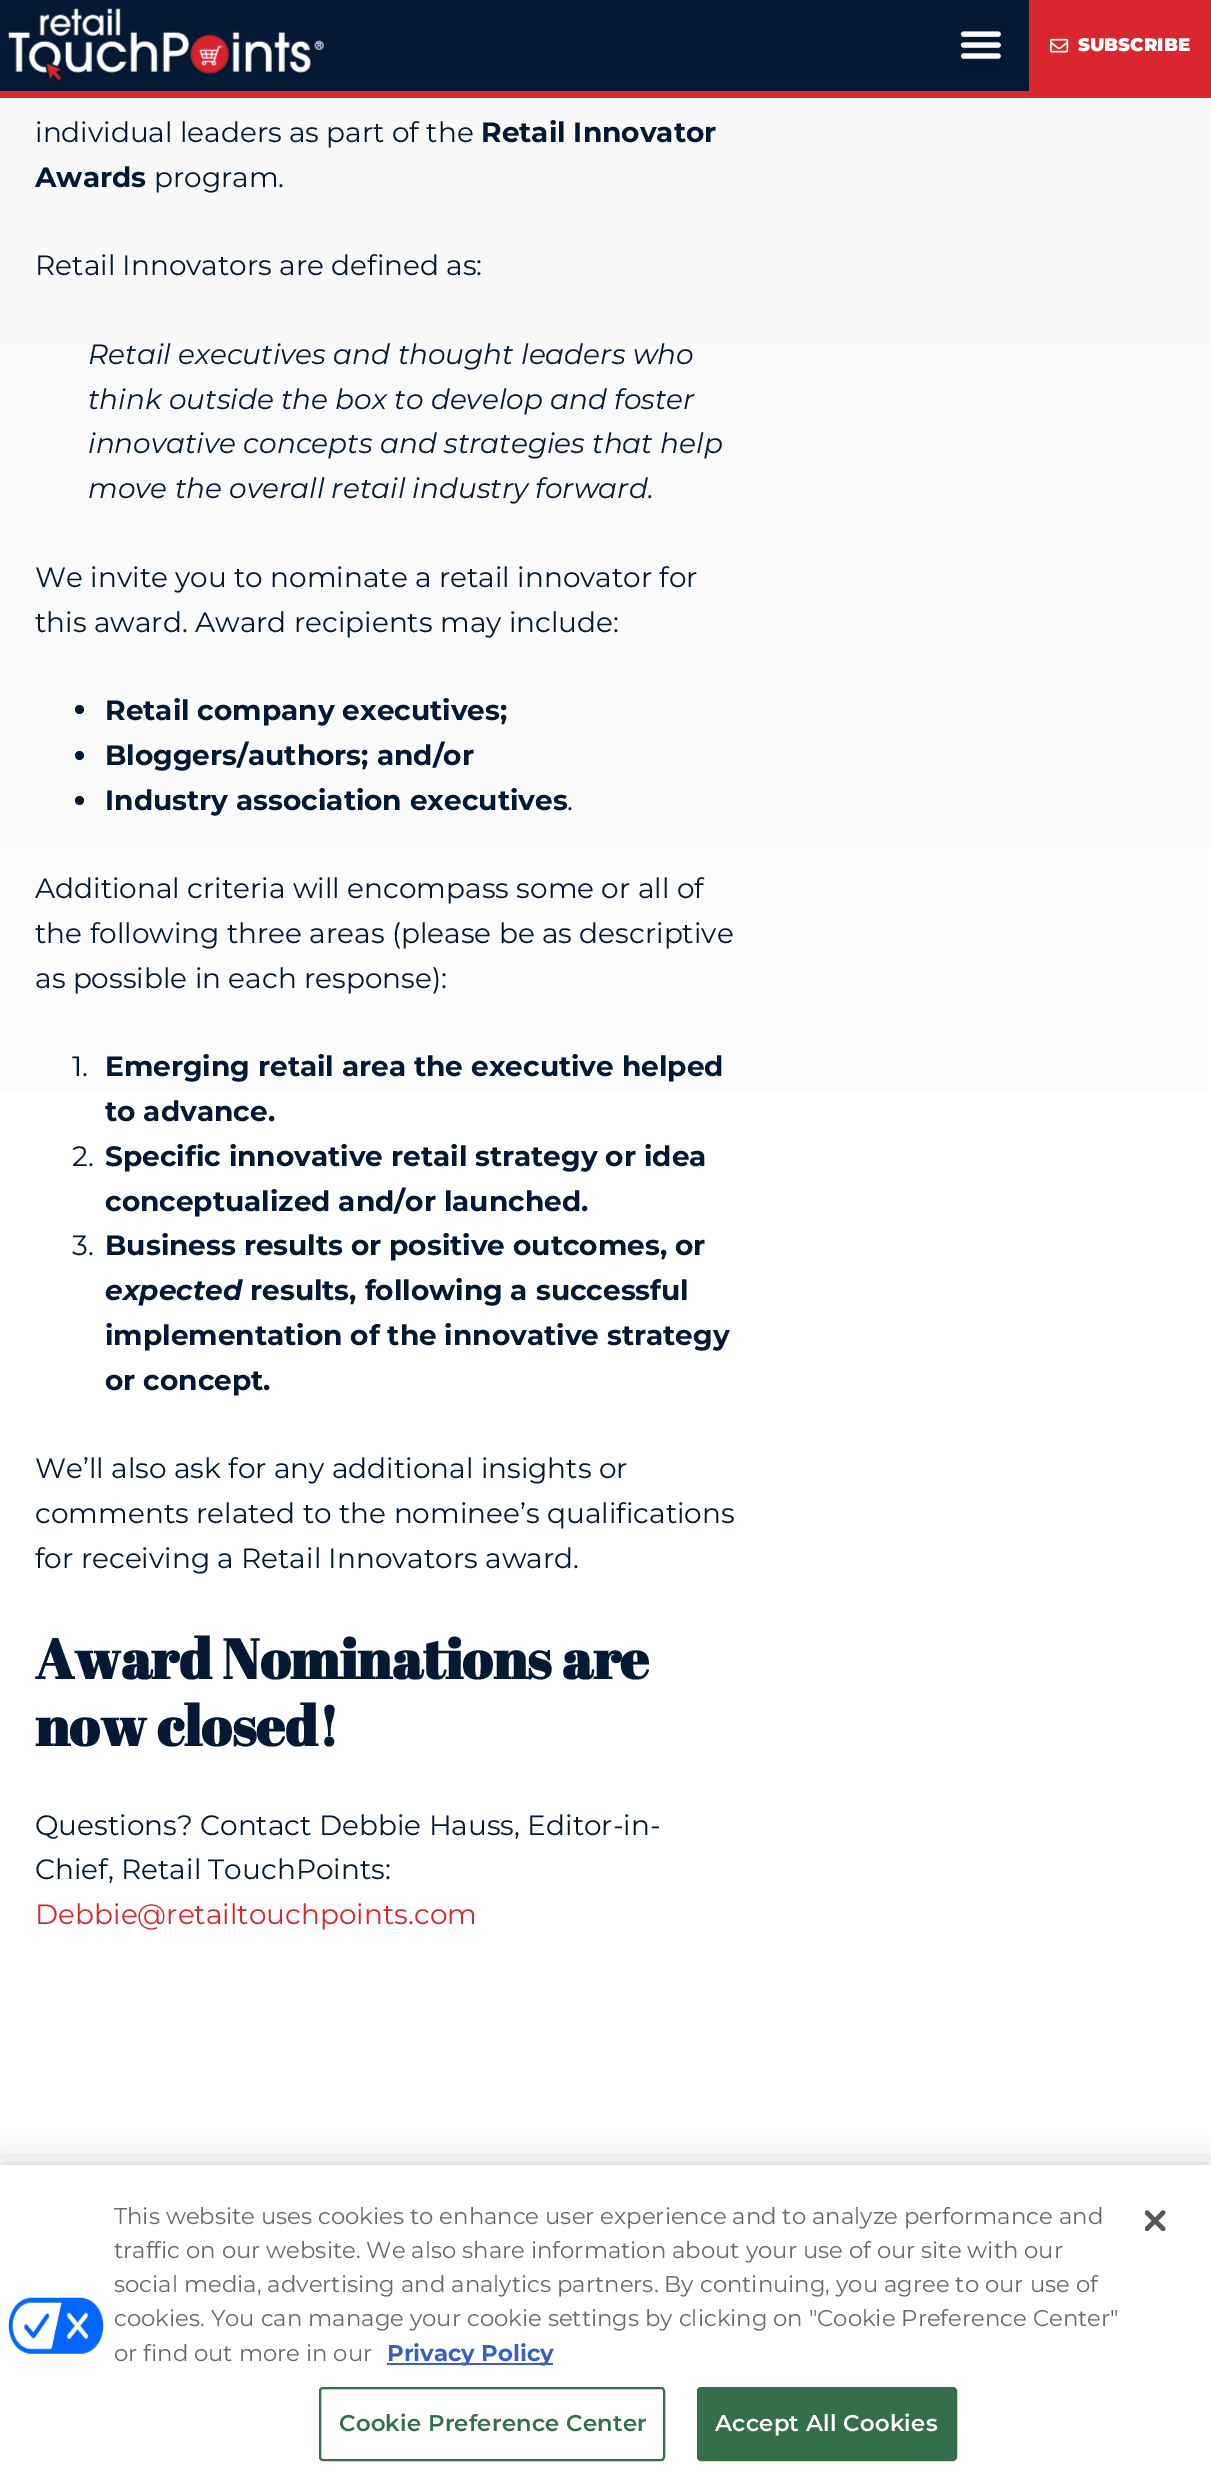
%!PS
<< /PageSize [1211 2488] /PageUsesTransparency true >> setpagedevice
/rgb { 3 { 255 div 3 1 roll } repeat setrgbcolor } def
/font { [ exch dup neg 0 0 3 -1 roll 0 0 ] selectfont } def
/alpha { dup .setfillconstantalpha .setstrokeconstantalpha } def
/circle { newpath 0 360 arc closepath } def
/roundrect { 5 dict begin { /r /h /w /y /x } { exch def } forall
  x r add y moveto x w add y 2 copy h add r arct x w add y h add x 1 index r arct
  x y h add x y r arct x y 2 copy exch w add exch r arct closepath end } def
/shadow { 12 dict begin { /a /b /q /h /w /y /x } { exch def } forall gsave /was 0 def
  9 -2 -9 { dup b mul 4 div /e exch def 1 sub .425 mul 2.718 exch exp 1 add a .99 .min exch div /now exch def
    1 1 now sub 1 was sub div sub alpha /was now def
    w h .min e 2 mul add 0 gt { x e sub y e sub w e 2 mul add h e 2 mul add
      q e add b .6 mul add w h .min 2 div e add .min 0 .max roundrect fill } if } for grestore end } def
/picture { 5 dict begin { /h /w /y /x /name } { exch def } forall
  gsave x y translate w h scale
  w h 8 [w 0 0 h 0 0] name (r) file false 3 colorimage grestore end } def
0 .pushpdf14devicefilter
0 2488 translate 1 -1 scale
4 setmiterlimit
255 255 255 rgb
0 0 1211 2488 rectfill
5 25 52 rgb
0 0 1029 91 rectfill
217 39 45 rgb
0 91 1211 7 rectfill
(img/1.rgb) 8 8 316 73 picture
5 24 49 rgb
959 23 44 44 rectfill
(img/2.rgb) 960 31 41 28 picture
217 39 45 rgb
1029 0 182 91 rectfill
(img/3.rgb) 1050 38 19 15 picture
gsave 0 98 moveto 1211 98 lineto 1211 1092 lineto 0 1092 lineto closepath clip newpath
<< /ShadingType 2 /ColorSpace /DeviceRGB /Coords [605 -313 606 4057] /Extend [true true] /Function << /FunctionType 3 /Domain [0 1] /Functions [<< /FunctionType 2 /Domain [0 1] /C0 [0.973 0.973 0.973] /C1 [1 1 1] /N 1 >> << /FunctionType 2 /Domain [0 1] /C0 [1 1 1] /C1 [1 1 1] /N 1 >>] /Bounds [0.5] /Encode [0 1 0 1] >> >> shfill grestore
5 25 52 rgb
79.5 709.5 4.5 circle fill
79.5 755.5 4.5 circle fill
79.5 800.5 4.5 circle fill
0 0 0 rgb
0 2165 1211 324 0 16 0.2 shadow
255 255 255 rgb
0 2165 1211 323 rectfill
(img/4.rgb) 8 2297 96 57 picture
56 96 190 rgb
387 2363 166 2 rectfill
52 110 74 rgb
2 setlinewidth
320 2388 344 72 3 roundrect stroke
698 2388 258 72 3 roundrect gsave fill grestore
stroke
(img/5.rgb) 1145 2210 21 21 picture
/Montserrat-Black 18.25 font
255 255 255 rgb
1078 51 moveto (SUBSCRIBE) show
/Montserrat-Regular 28 font
5 25 52 rgb
35 142 moveto (individual leaders as part of the) show
/Montserrat-Bold 28 font
481 142 moveto (Retail Innovator) show
35 187 moveto (Awards) show
/Montserrat-Regular 28 font
154 187 moveto (program.) show
35 275 moveto (Retail Innovators are defined as:) show
/Montserrat-Italic 28 font
[
  [(Retail executives and thought leaders who) 88 364]
  [(think outside the box to develop and foster) 88 409]
  [(innovative concepts and strategies that help) 88 453]
  [(move the overall retail industry forward.) 88 498]
] { aload pop moveto show } forall
/Montserrat-Regular 28 font
35 587 moveto (We invite you to nominate a retail innovator for) show
35 632 moveto (this award. Award recipients may include:) show
/Montserrat-Bold 28 font
[
  [(Retail company executives;) 105 720]
  [(Bloggers/authors; and/or) 105 765]
  [(Industry association executives) 105 810]
] { aload pop moveto show } forall
/Montserrat-Regular 28 font
[
  [(.) 567 810]
  [(Additional criteria will encompass some or all of) 35 898]
  [(the following three areas \(please be as descriptive) 35 943]
  [(as possible in each response\):) 35 988]
  [(1.) 72 1076]
] { aload pop moveto show } forall
/Montserrat-Bold 28 font
105 1076 moveto (Emerging retail area the executive helped) show
105 1121 moveto (to advance.) show
/Montserrat-Regular 28 font
72 1166 moveto (2.) show
/Montserrat-Bold 28 font
105 1166 moveto (Specific innovative retail strategy or idea) show
105 1211 moveto (conceptualized and/or launched.) show
/Montserrat-Regular 28 font
72 1255 moveto (3.) show
/Montserrat-Bold 28 font
105 1255 moveto (Business results or positive outcomes, or) show
/Montserrat-BoldItalic 28 font
105 1300 moveto (expected) show
/Montserrat-Bold 28 font
[
  [(results, following a successful) 250 1300]
  [(implementation of the innovative strategy) 105 1345]
  [(or concept.) 105 1390]
] { aload pop moveto show } forall
/Montserrat-Regular 28 font
[
  [(We’ll also ask for any additional insights or) 35 1478]
  [(comments related to the nominee’s qualifications) 35 1523]
  [(for receiving a Retail Innovators award.) 35 1568]
] { aload pop moveto show } forall
/AbrilFatface-Bold 56 font
35 1679 moveto (Award Nominations are) show
35 1746 moveto (now closed!) show
/Montserrat-Regular 28 font
35 1835 moveto (Questions? Contact Debbie Hauss, Editor-in-) show
35 1879 moveto (Chief, Retail TouchPoints:) show
217 39 45 rgb
35 1924 moveto (Debbie@retailtouchpoints.com) show
/Montserrat-Regular 22.75 font
105 105 105 rgb
[
  [(This website uses cookies to enhance user experience and to analyze performance and) 114 2224]
  [(traffic on our website. We also share information about your use of our site with our) 114 2258]
  [(social media, advertising and analytics partners. By continuing, you agree to our use of) 114 2292]
  [(cookies. You can manage your cookie settings by clicking on "Cookie Preference Center") 114 2326]
  [(or find out more in our) 114 2361]
] { aload pop moveto show } forall
/Montserrat-Bold 22.75 font
56 96 190 rgb
387 2361 moveto (Privacy Policy) show
/Montserrat-SemiBold 22.75 font
52 110 74 rgb
339 2431 moveto 0.25 0 (Cookie Preference Center) ashow
255 255 255 rgb
715 2431 moveto 0.25 0 (Accept All Cookies) ashow
.poppdf14devicefilter showpage
